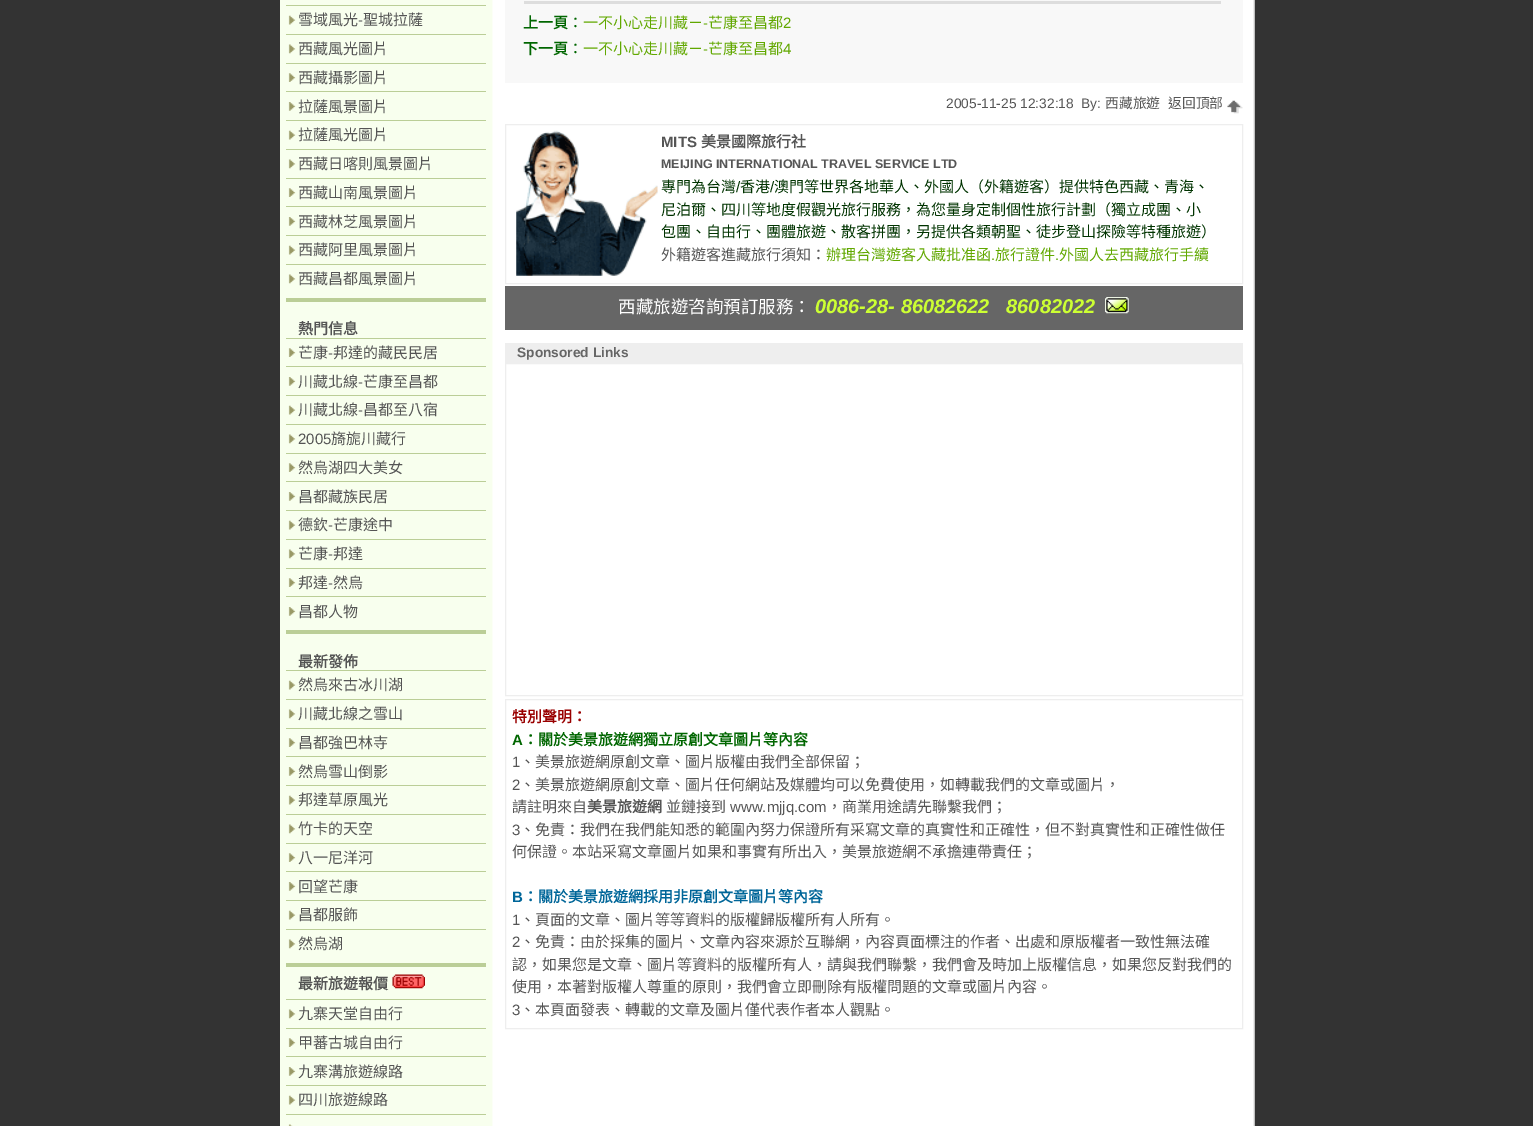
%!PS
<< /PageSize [1533 1126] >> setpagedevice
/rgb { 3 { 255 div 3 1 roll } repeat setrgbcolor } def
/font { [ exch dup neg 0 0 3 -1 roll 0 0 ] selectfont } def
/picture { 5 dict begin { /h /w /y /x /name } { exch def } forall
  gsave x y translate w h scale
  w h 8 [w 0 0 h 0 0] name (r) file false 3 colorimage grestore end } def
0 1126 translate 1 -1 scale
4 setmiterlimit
51 51 51 rgb
0 0 1533 1126 rectfill
(img/1.rgb) 280 0 975 1126 picture
(img/2.rgb) 288 15 8 10 picture
187 206 151 rgb
286 5 200 1 rectfill
(img/3.rgb) 288 44 8 10 picture
286 34 200 1 rectfill
(img/4.rgb) 288 73 8 9 picture
286 63 200 1 rectfill
(img/5.rgb) 288 102 8 9 picture
286 91 200 1 rectfill
(img/2.rgb) 288 130 8 10 picture
286 120 200 1 rectfill
(img/3.rgb) 288 159 8 10 picture
286 149 200 1 rectfill
(img/4.rgb) 288 188 8 9 picture
286 178 200 1 rectfill
(img/5.rgb) 288 217 8 9 picture
286 206 200 1 rectfill
(img/2.rgb) 288 245 8 10 picture
286 235 200 1 rectfill
(img/3.rgb) 288 274 8 10 picture
286 264 200 1 rectfill
286 298 200 4 rectfill
(img/4.rgb) 288 348 8 9 picture
286 338 200 1 rectfill
(img/5.rgb) 288 377 8 9 picture
286 366 200 1 rectfill
(img/2.rgb) 288 405 8 10 picture
286 395 200 1 rectfill
(img/3.rgb) 288 434 8 10 picture
286 424 200 1 rectfill
(img/4.rgb) 288 463 8 9 picture
286 453 200 1 rectfill
(img/5.rgb) 288 492 8 9 picture
286 481 200 1 rectfill
(img/2.rgb) 288 520 8 10 picture
286 510 200 1 rectfill
(img/3.rgb) 288 549 8 10 picture
286 539 200 1 rectfill
(img/4.rgb) 288 578 8 9 picture
286 568 200 1 rectfill
(img/5.rgb) 288 607 8 9 picture
286 596 200 1 rectfill
286 630 200 4 rectfill
(img/2.rgb) 288 680 8 10 picture
286 670 200 1 rectfill
(img/3.rgb) 288 709 8 10 picture
286 699 200 1 rectfill
(img/4.rgb) 288 738 8 9 picture
286 728 200 1 rectfill
(img/5.rgb) 288 767 8 9 picture
286 756 200 1 rectfill
(img/2.rgb) 288 795 8 10 picture
286 785 200 1 rectfill
(img/3.rgb) 288 824 8 10 picture
286 814 200 1 rectfill
(img/4.rgb) 288 853 8 9 picture
286 843 200 1 rectfill
(img/5.rgb) 288 882 8 9 picture
286 871 200 1 rectfill
(img/2.rgb) 288 910 8 10 picture
286 900 200 1 rectfill
(img/3.rgb) 288 939 8 10 picture
286 929 200 1 rectfill
286 963 200 4 rectfill
(img/6.rgb) 392 974 33 15 picture
(img/3.rgb) 288 1009 8 10 picture
286 999 200 1 rectfill
(img/4.rgb) 288 1038 8 9 picture
286 1028 200 1 rectfill
(img/5.rgb) 288 1067 8 9 picture
286 1056 200 1 rectfill
(img/2.rgb) 288 1095 8 10 picture
286 1085 200 1 rectfill
(img/7.rgb) 288 1124 5 2 picture
[
  [286 1114 200 1 187 206 151]
  [505 0 738 83 248 248 248]
  [524 1 697 3 221 221 221]
] { aload pop rgb rectfill } forall
(img/8.rgb) 1227 100 16 14 picture
238 238 238 rgb
505.5 124.5 737 159 rectstroke
(img/9.rgb) 516 130 142 146 picture
102 102 102 rgb
505 286 738 44 rectfill
(img/10.rgb) 1105 297 24 17 picture
238 238 238 rgb
505 343 738 20 rectfill
505.5 363.5 737 332 rectstroke
505.5 699.5 737 329 rectstroke
/NotoSansCJKTC-Regular 15 font
85 85 85 rgb
298 25 moveto (雪域風光) show
/LiberationSans-Regular 15 font
358 25 moveto (-) show
/NotoSansCJKTC-Regular 15 font
[
  [(聖城拉薩) 363 25]
  [(西藏風光圖片) 298 54]
  [(西藏攝影圖片) 298 83]
  [(拉薩風景圖片) 298 112]
  [(拉薩風光圖片) 298 140]
  [(西藏日喀則風景圖片) 298 169]
  [(西藏山南風景圖片) 298 198]
  [(西藏林芝風景圖片) 298 227]
  [(西藏阿里風景圖片) 298 255]
  [(西藏昌都風景圖片) 298 284]
] { aload pop moveto show } forall
/NotoSansCJKTC-Bold 15 font
298 334 moveto (熱門信息) show
/NotoSansCJKTC-Regular 15 font
298 358 moveto (芒康) show
/LiberationSans-Regular 15 font
328 358 moveto (-) show
/NotoSansCJKTC-Regular 15 font
333 358 moveto (邦達的藏民民居) show
298 387 moveto (川藏北線) show
/LiberationSans-Regular 15 font
358 387 moveto (-) show
/NotoSansCJKTC-Regular 15 font
363 387 moveto (芒康至昌都) show
298 415 moveto (川藏北線) show
/LiberationSans-Regular 15 font
358 415 moveto (-) show
/NotoSansCJKTC-Regular 15 font
363 415 moveto (昌都至八宿) show
/LiberationSans-Regular 15 font
298 444 moveto (2005) show
/NotoSansCJKTC-Regular 15 font
[
  [(旖旎川藏行) 331 444]
  [(然烏湖四大美女) 298 473]
  [(昌都藏族民居) 298 502]
  [(德欽) 298 530]
] { aload pop moveto show } forall
/LiberationSans-Regular 15 font
328 530 moveto (-) show
/NotoSansCJKTC-Regular 15 font
333 530 moveto (芒康途中) show
298 559 moveto (芒康) show
/LiberationSans-Regular 15 font
328 559 moveto (-) show
/NotoSansCJKTC-Regular 15 font
333 559 moveto (邦達) show
298 588 moveto (邦達) show
/LiberationSans-Regular 15 font
328 588 moveto (-) show
/NotoSansCJKTC-Regular 15 font
333 588 moveto (然烏) show
298 617 moveto (昌都人物) show
/NotoSansCJKTC-Bold 15 font
298 667 moveto (最新發佈) show
/NotoSansCJKTC-Regular 15 font
[
  [(然烏來古冰川湖) 298 690]
  [(川藏北線之雪山) 298 719]
  [(昌都強巴林寺) 298 748]
  [(然烏雪山倒影) 298 777]
  [(邦達草原風光) 298 805]
  [(竹卡的天空) 298 834]
  [(八一尼洋河) 298 863]
  [(回望芒康) 298 892]
  [(昌都服飾) 298 920]
  [(然烏湖) 298 949]
] { aload pop moveto show } forall
/NotoSansCJKTC-Bold 15 font
298 989 moveto (最新旅遊報價) show
/NotoSansCJKTC-Regular 15 font
[
  [(九寨天堂自由行) 298 1019]
  [(甲蕃古城自由行) 298 1048]
  [(九寨溝旅遊線路) 298 1077]
  [(四川旅遊線路) 298 1105]
] { aload pop moveto show } forall
/NotoSansCJKTC-Bold 15 font
0 102 0 rgb
523 28 moveto (上一頁) show
/NotoSansCJKTC-Regular 15 font
568 28 moveto (：) show
97 168 0 rgb
583 28 moveto (一不小心走川藏－) show
/LiberationSans-Regular 15 font
703 28 moveto (-) show
/NotoSansCJKTC-Regular 15 font
708 28 moveto (芒康至昌都) show
/LiberationSans-Regular 15 font
783 28 moveto (2) show
/NotoSansCJKTC-Bold 15 font
0 102 0 rgb
523 54 moveto (下一頁) show
/NotoSansCJKTC-Regular 15 font
568 54 moveto (：) show
97 168 0 rgb
583 54 moveto (一不小心走川藏－) show
/LiberationSans-Regular 15 font
703 54 moveto (-) show
/NotoSansCJKTC-Regular 15 font
708 54 moveto (芒康至昌都) show
/LiberationSans-Regular 15 font
783 54 moveto (4) show
/LiberationSans-Regular 13.75 font
85 85 85 rgb
946 108 moveto (2005-11-25 12:32:18  By:) show
/NotoSansCJKTC-Regular 13.75 font
1105 108 moveto (西藏旅遊) show
1168 108 moveto (返回頂部) show
/LiberationSans-Bold 15 font
661 147 moveto (MITS) show
/NotoSansCJKTC-Bold 15 font
701 147 moveto (美景國際旅行社) show
/LiberationSans-Bold 12.5 font
661 168 moveto (MEIJING INTERNATIONAL TRAVEL SERVICE LTD) show
/NotoSansCJKTC-Regular 15 font
0 51 0 rgb
661 192 moveto (專門為台灣) show
/LiberationSans-Regular 15 font
736 192 moveto (/) show
/NotoSansCJKTC-Regular 15 font
740 192 moveto (香港) show
/LiberationSans-Regular 15 font
770 192 moveto (/) show
/NotoSansCJKTC-Regular 15 font
[
  [(澳門等世界各地華人、外國人（外籍遊客）提供特色西藏、青海、) 774 192]
  [(尼泊爾、四川等地度假觀光旅行服務，為您量身定制個性旅行計劃（獨立成團、小) 661 215]
  [(包團、自由行、團體旅遊、散客拼團，另提供各類朝聖、徒步登山探險等特種旅遊）) 661 237]
] { aload pop moveto show } forall
85 85 85 rgb
661 260 moveto (外籍遊客進藏旅行須知：) show
97 168 0 rgb
826 260 moveto (辦理台灣遊客入藏批准函) show
/LiberationSans-Regular 15 font
991 260 moveto (.) show
/NotoSansCJKTC-Regular 15 font
995 260 moveto (旅行證件) show
/LiberationSans-Regular 15 font
1055 260 moveto (.) show
/NotoSansCJKTC-Regular 15 font
1059 260 moveto (外國人去西藏旅行手續) show
/NotoSansCJKTC-Regular 17.5 font
255 255 255 rgb
618 313 moveto (西藏旅遊咨詢預訂服務：) show
/LiberationSans-BoldItalic 20 font
204 255 51 rgb
815 313 moveto (0086-28- 86082622   86082022) show
/LiberationSans-Bold 13.75 font
102 102 102 rgb
517 357 moveto (Sponsored Links) show
/NotoSansCJKTC-Bold 15 font
153 0 0 rgb
512 722 moveto (特別聲明：) show
/LiberationSans-Bold 15 font
0 102 0 rgb
512 745 moveto (A) show
/NotoSansCJKTC-Bold 15 font
523 745 moveto (：關於美景旅遊網獨立原創文章圖片等內容) show
/LiberationSans-Regular 15 font
85 85 85 rgb
512 767 moveto (1) show
/NotoSansCJKTC-Regular 15 font
520 767 moveto (、美景旅遊網原創文章、圖片版權由我們全部保留；) show
/LiberationSans-Regular 15 font
512 790 moveto (2) show
/NotoSansCJKTC-Regular 15 font
520 790 moveto (、美景旅遊網原創文章、圖片任何網站及媒體均可以免費使用，如轉載我們的文章或圖片，) show
512 812 moveto (請註明來自) show
/NotoSansCJKTC-Bold 15 font
587 812 moveto (美景旅遊網) show
/NotoSansCJKTC-Regular 15 font
666 812 moveto (並鏈接到) show
/LiberationSans-Regular 15 font
730 812 moveto (www.mjjq.com) show
/NotoSansCJKTC-Regular 15 font
827 812 moveto (，商業用途請先聯繫我們；) show
/LiberationSans-Regular 15 font
512 835 moveto (3) show
/NotoSansCJKTC-Regular 15 font
520 835 moveto (、免責：我們在我們能知悉的範圍內努力保證所有采寫文章的真實性和正確性，但不對真實性和正確性做任) show
512 857 moveto (何保證。本站采寫文章圖片如果和事實有所出入，美景旅遊網不承擔連帶責任；) show
/LiberationSans-Bold 15 font
0 102 153 rgb
512 902 moveto (B) show
/NotoSansCJKTC-Bold 15 font
523 902 moveto (：關於美景旅遊網採用非原創文章圖片等內容) show
/LiberationSans-Regular 15 font
85 85 85 rgb
512 925 moveto (1) show
/NotoSansCJKTC-Regular 15 font
520 925 moveto (、頁面的文章、圖片等等資料的版權歸版權所有人所有。) show
/LiberationSans-Regular 15 font
512 947 moveto (2) show
/NotoSansCJKTC-Regular 15 font
[
  [(、免責：由於採集的圖片、文章內容來源於互聯網，內容頁面標注的作者、出處和原版權者一致性無法確) 520 947]
  [(認，如果您是文章、圖片等資料的版權所有人，請與我們聯繫，我們會及時加上版權信息，如果您反對我們的) 512 970]
  [(使用，本著對版權人尊重的原則，我們會立即刪除有版權問題的文章或圖片內容。) 512 992]
] { aload pop moveto show } forall
/LiberationSans-Regular 15 font
512 1015 moveto (3) show
/NotoSansCJKTC-Regular 15 font
520 1015 moveto (、本頁面發表、轉載的文章及圖片僅代表作者本人觀點。) show
showpage
